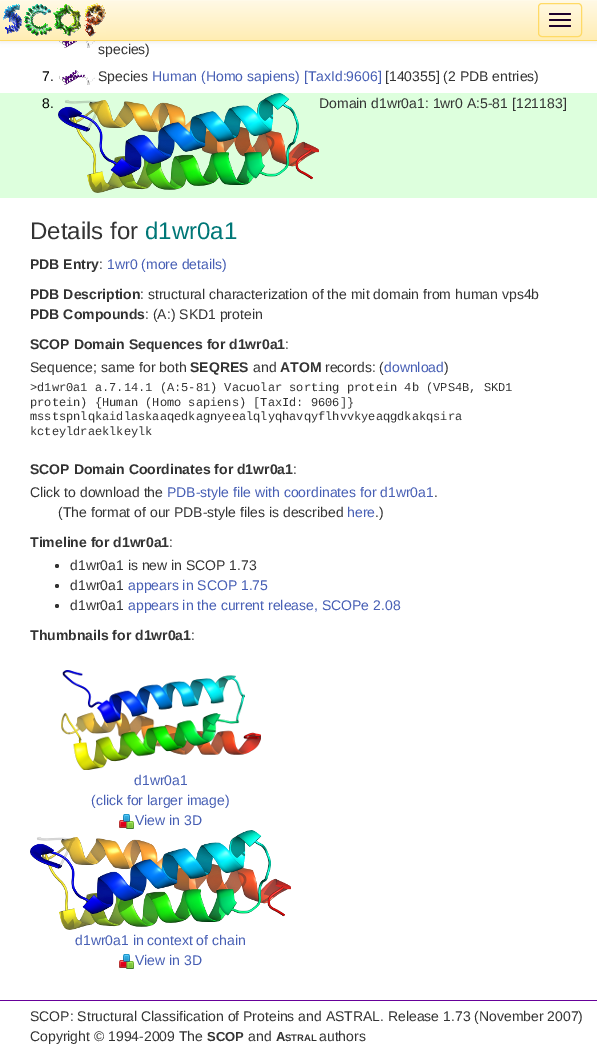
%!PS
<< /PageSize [597 1054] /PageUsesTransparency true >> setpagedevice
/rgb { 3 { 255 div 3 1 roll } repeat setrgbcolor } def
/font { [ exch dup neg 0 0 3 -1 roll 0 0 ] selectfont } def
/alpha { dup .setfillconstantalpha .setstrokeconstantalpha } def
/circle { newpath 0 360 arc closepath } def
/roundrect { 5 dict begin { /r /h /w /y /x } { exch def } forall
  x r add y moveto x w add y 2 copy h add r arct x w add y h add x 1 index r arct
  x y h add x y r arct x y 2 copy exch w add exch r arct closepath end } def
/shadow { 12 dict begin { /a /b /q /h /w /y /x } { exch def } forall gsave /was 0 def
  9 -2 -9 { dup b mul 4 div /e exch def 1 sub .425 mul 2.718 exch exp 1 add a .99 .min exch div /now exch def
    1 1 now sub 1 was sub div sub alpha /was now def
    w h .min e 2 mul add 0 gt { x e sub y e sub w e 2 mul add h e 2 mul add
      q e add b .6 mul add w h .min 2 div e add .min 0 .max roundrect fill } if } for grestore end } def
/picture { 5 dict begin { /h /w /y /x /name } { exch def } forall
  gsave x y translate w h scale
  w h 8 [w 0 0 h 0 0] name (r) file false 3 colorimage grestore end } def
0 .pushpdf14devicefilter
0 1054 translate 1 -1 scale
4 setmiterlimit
255 255 255 rgb
0 0 597 1054 rectfill
(img/2.rgb) 59 41 36 7 picture
0 0 0 rgb
0 1 597 41 0 2.5 0.07 shadow
gsave 0 1 moveto 597 1 lineto 597 40 lineto 0 40 lineto closepath clip newpath
<< /ShadingType 2 /ColorSpace /DeviceRGB /Coords [299 0 299 40] /Extend [true true] /Function << /FunctionType 2 /Domain [0 1] /C0 [1 0.976 0.902] /C1 [1 0.929 0.702] /N 1 >> >> shfill grestore
255 250 233 rgb
0 0 597 1 rectfill
255 218 101 rgb
0 40 597 1 rectfill
(img/1.rgb) 3 3 103 34 picture
538.5 3.5 43 33 3.5 roundrect stroke
29 0 43 rgb
549 13 22 2 1 roundrect fill
549 19 22 2 1 roundrect fill
549 25 22 2 1 roundrect fill
(img/3.rgb) 59 70 36 15 picture
221 255 221 rgb
0 93 597 105 rectfill
(img/4.rgb) 58 93 261 100 picture
51 51 51 rgb
57 566 2 circle fill
57 586 2 circle fill
57 606 2 circle fill
(img/5.rgb) 61 670 200 100 picture
(img/6.rgb) 119 814 15 15 picture
(img/7.rgb) 30 830 261 100 picture
(img/6.rgb) 119 954 15 15 picture
102 0 153 rgb
0 1000 597 1 rectfill
/LiberationSans-Regular 14 font
51 51 51 rgb
98 54 moveto (species\)) show
0 0 0 rgb
42 81 moveto (7.) show
51 51 51 rgb
98 81 moveto (Species) show
70 94 180 rgb
152 81 moveto (Human \(Homo sapiens\) [TaxId:9606]) show
51 51 51 rgb
385 81 moveto ([140355] \(2 PDB entries\)) show
0 0 0 rgb
42 108 moveto (8.) show
51 51 51 rgb
319 108 moveto (Domain d1wr0a1: 1wr0 A:5-81 [121183]) show
/LiberationSans-Regular 24 font
30 239 moveto (Details for) show
0 119 119 rgb
145 239 moveto (d1wr0a1) show
/LiberationSans-Bold 14 font
51 51 51 rgb
30 269 moveto (PDB Entry) show
/LiberationSans-Regular 14 font
99 269 moveto (:) show
70 94 180 rgb
107 269 moveto (1wr0 \(more details\)) show
/LiberationSans-Bold 14 font
51 51 51 rgb
30 299 moveto (PDB Description) show
/LiberationSans-Regular 14 font
140 299 moveto (: structural characterization of the mit domain from human vps4b) show
/LiberationSans-Bold 14 font
30 319 moveto (PDB Compounds) show
/LiberationSans-Regular 14 font
145 319 moveto (: \(A:\) SKD1 protein) show
/LiberationSans-Bold 14 font
30 349 moveto (SCOP Domain Sequences for d1wr0a1) show
/LiberationSans-Regular 14 font
285 349 moveto (:) show
30 372 moveto (Sequence; same for both) show
/LiberationSans-Bold 14 font
190 372 moveto (SEQRES) show
/LiberationSans-Regular 14 font
253 372 moveto (and) show
/LiberationSans-Bold 14 font
280 372 moveto (ATOM) show
/LiberationSans-Regular 14 font
325 372 moveto (records: \() show
70 94 180 rgb
384 372 moveto (download) show
51 51 51 rgb
444 372 moveto (\)) show
/LiberationMono-Regular 12 font
[
  [(>d1wr0a1 a.7.14.1 \(A:5-81\) Vacuolar sorting protein 4b \(VPS4B, SKD1) 30 391]
  [(protein\) {Human \(Homo sapiens\) [TaxId: 9606]}) 30 406]
  [(msstspnlqkaidlaskaaqedkagnyeealqlyqhavqyflhvvkyeaqgdkakqsira) 30 420]
  [(kcteyldraeklkeylk) 30 435]
] { aload pop moveto show } forall
/LiberationSans-Bold 14 font
30 474 moveto (SCOP Domain Coordinates for d1wr0a1) show
/LiberationSans-Regular 14 font
293 474 moveto (:) show
30 497 moveto (Click to download the) show
70 94 180 rgb
167 497 moveto (PDB-style file with coordinates for d1wr0a1) show
51 51 51 rgb
434 497 moveto (.) show
58 517 moveto (\(The format of our PDB-style files is described) show
70 94 180 rgb
347 517 moveto (here) show
51 51 51 rgb
375 517 moveto (.\)) show
/LiberationSans-Bold 14 font
30 547 moveto (Timeline for d1wr0a1) show
/LiberationSans-Regular 14 font
[
  [(:) 169 547]
  [(d1wr0a1 is new in SCOP 1.73) 70 570]
  [(d1wr0a1) 70 590]
] { aload pop moveto show } forall
70 94 180 rgb
128 590 moveto (appears in SCOP 1.75) show
51 51 51 rgb
70 610 moveto (d1wr0a1) show
70 94 180 rgb
128 610 moveto (appears in the current release, SCOPe 2.08) show
/LiberationSans-Bold 14 font
51 51 51 rgb
30 640 moveto (Thumbnails for d1wr0a1) show
/LiberationSans-Regular 14 font
191 640 moveto (:) show
70 94 180 rgb
[
  [(d1wr0a1) 134 785]
  [(\(click for larger image\)) 91 805]
  [(View in 3D) 135 825]
  [(d1wr0a1 in context of chain) 75 945]
  [(View in 3D) 135 965]
] { aload pop moveto show } forall
51 51 51 rgb
30 1021 moveto (SCOP: Structural Classification of Proteins and ASTRAL. Release 1.73 \(November 2007\)) show
30 1041 moveto (Copyright © 1994-2009 The) show
/LiberationSans-Bold 13 font
207 1041 moveto (SCOP) show
/LiberationSans-Regular 14 font
248 1041 moveto (and) show
/LiberationSans-Bold 13 font
276 1041 moveto (A) show
/LiberationSans-Bold 9.5 font
285 1041 moveto (STRAL) show
/LiberationSans-Regular 14 font
319 1041 moveto (authors) show
.poppdf14devicefilter showpage
